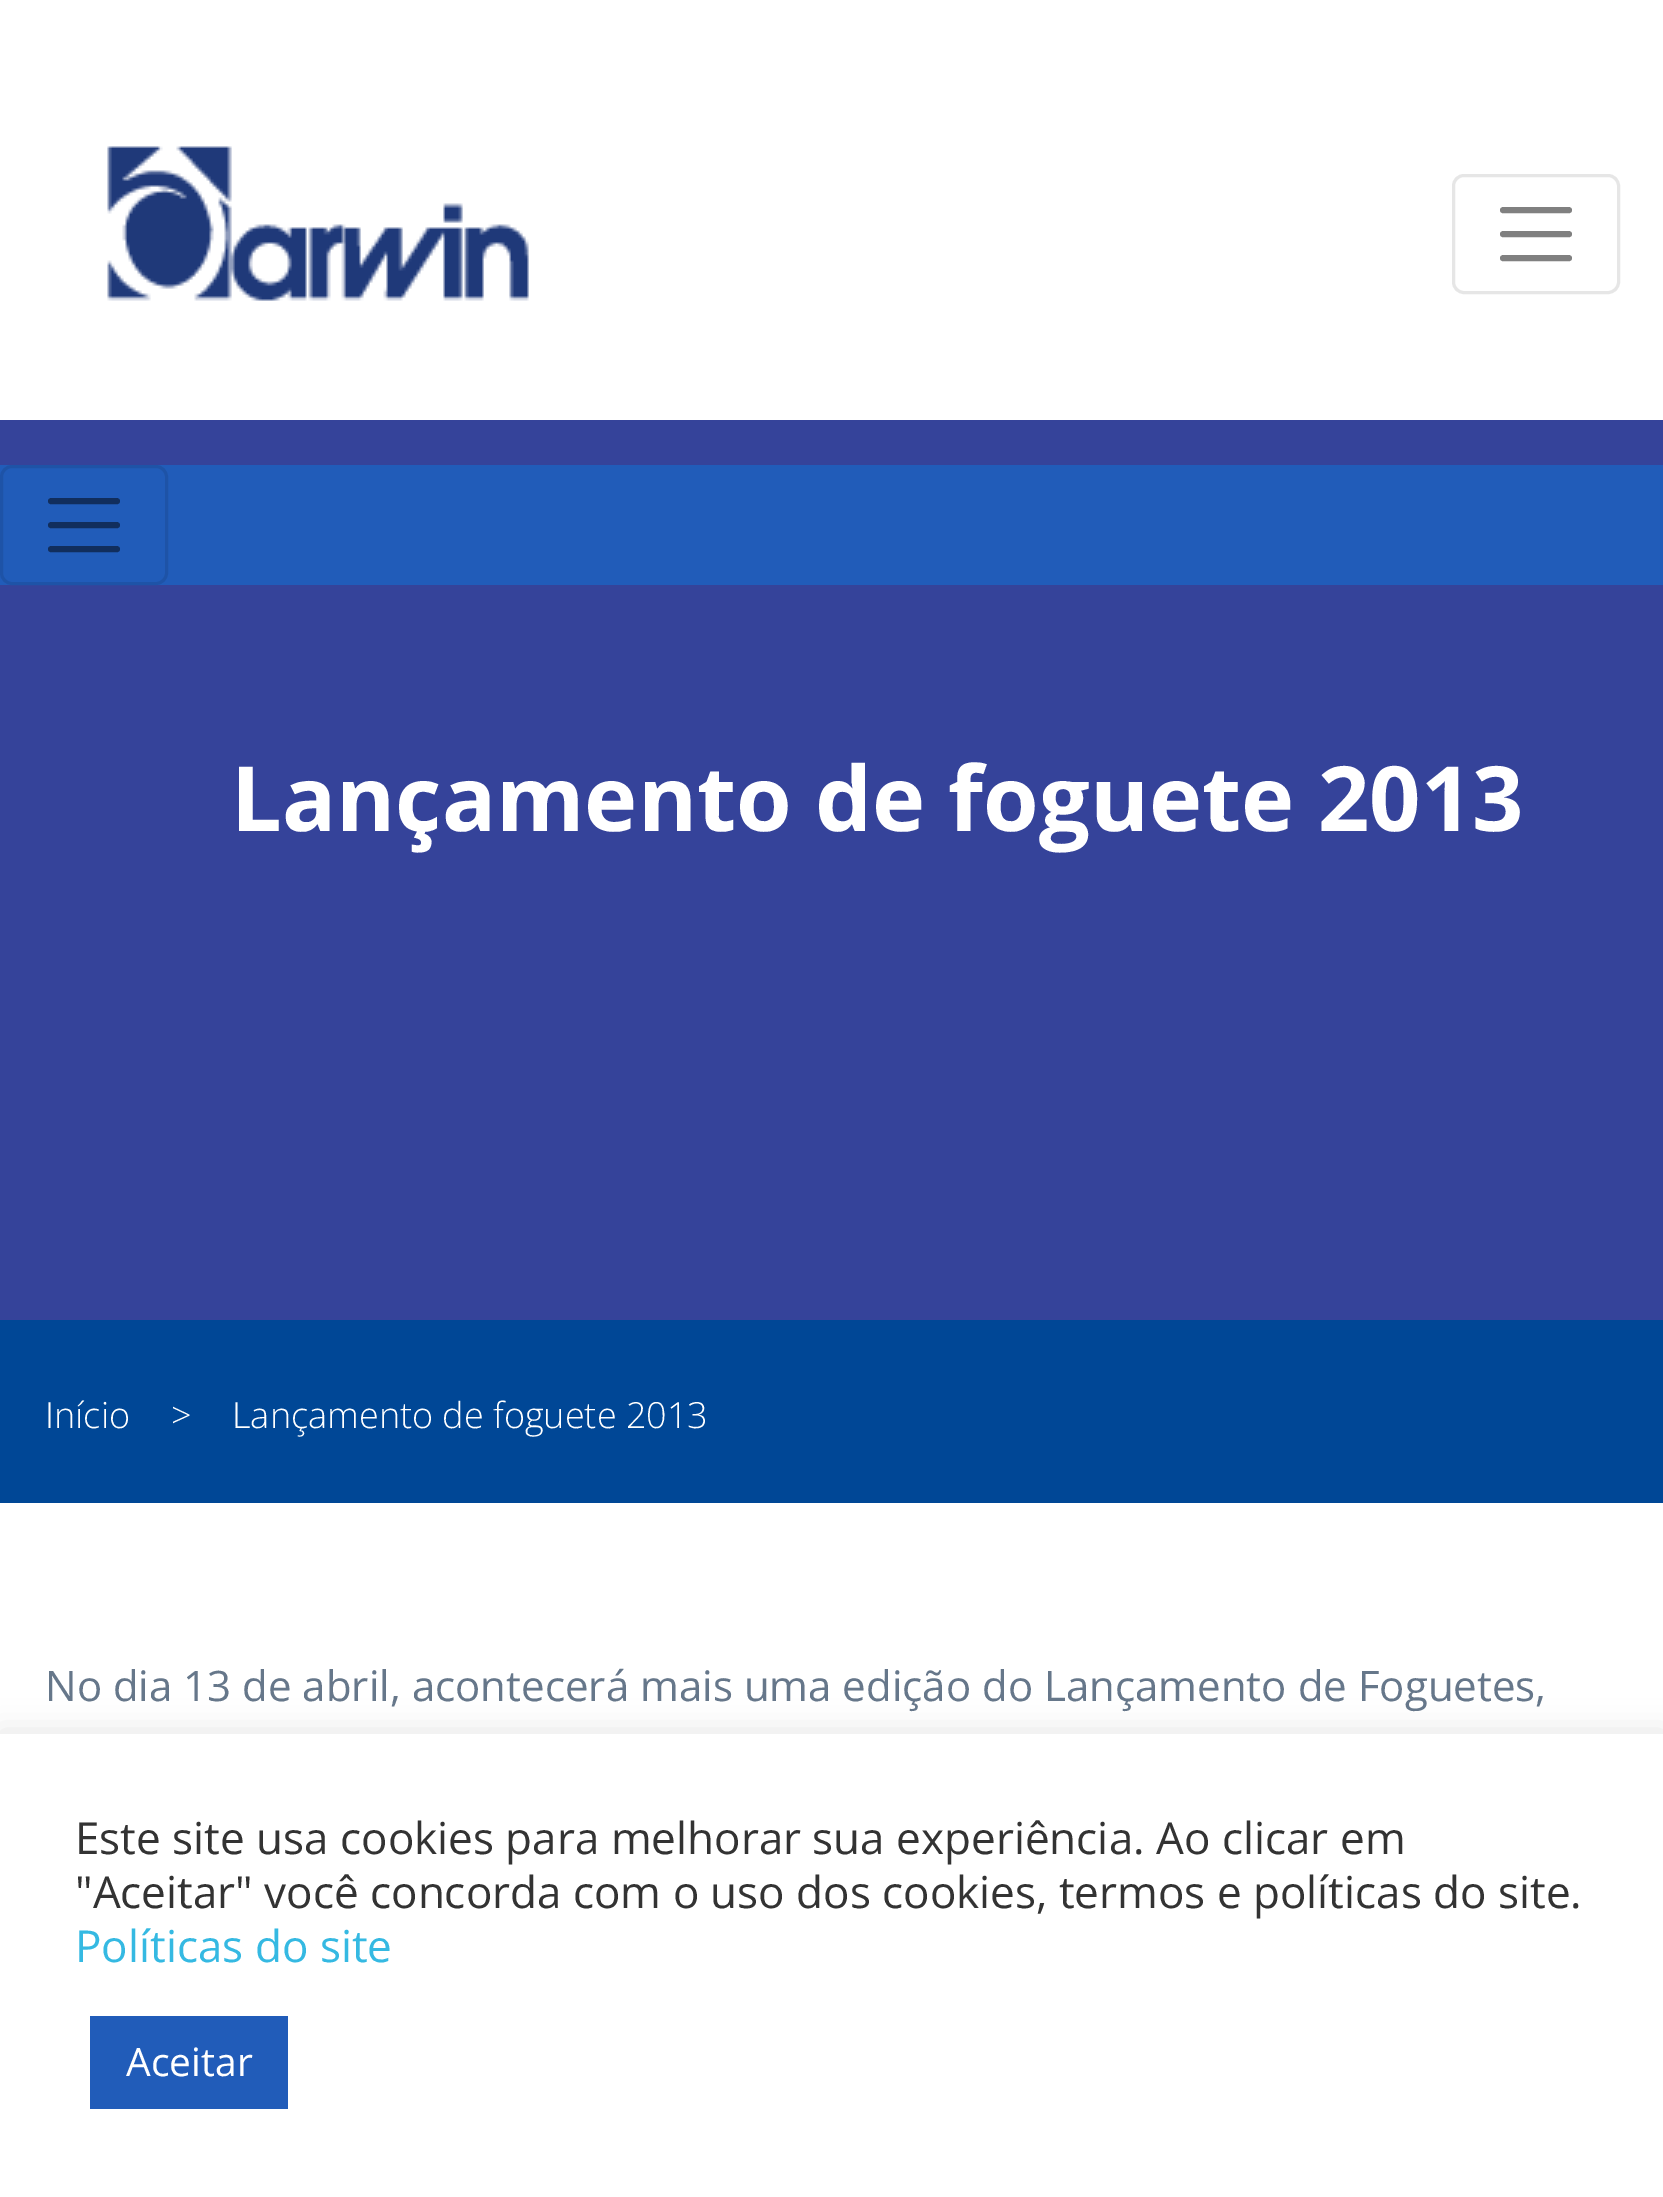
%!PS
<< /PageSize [1663 2197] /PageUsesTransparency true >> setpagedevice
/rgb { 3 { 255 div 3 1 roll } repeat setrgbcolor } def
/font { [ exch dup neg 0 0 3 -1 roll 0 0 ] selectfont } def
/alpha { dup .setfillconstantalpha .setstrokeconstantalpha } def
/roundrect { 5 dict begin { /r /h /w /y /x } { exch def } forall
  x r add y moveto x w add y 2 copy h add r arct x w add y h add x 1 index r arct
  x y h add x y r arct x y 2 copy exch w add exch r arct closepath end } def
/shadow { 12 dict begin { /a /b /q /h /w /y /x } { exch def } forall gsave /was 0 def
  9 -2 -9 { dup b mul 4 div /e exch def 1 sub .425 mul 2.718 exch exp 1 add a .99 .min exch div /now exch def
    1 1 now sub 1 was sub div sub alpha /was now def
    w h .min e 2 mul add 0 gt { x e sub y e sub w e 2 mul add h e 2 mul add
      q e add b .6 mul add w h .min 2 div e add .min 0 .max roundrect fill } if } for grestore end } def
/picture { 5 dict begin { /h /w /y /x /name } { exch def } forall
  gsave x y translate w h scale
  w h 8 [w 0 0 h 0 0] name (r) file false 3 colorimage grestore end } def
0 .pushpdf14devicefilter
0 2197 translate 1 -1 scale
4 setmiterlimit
255 255 255 rgb
0 0 1663 2197 rectfill
(img/1.rgb) 107 146 422 155 picture
230 230 230 rgb
3 setlinewidth
1453.5 175.5 165 117 10.5 roundrect stroke
128 128 128 rgb
6 setlinewidth
1 setlinecap
1503 210 moveto 1569 210 lineto 1503 234 moveto 1569 234 lineto 1503 258 moveto 1569 258 lineto stroke
53 67 154 rgb
0 420 1663 900 rectfill
33 92 185 rgb
0 465 1663 120 rectfill
30 83 167 rgb
3 setlinewidth
0 setlinecap
1.5 466.5 165 117 10.5 roundrect stroke
17 46 93 rgb
6 setlinewidth
1 setlinecap
51 501 moveto 117 501 lineto 51 525 moveto 117 525 lineto 51 549 moveto 117 549 lineto stroke
0 71 150 rgb
0 1320 1663 183 rectfill
172 171 171 rgb
0 1731 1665 465 0 15 0.3 shadow
255 255 255 rgb
0 1734 1663 463 rectfill
33 92 185 rgb
90 2016 198 93 rectfill
/OpenSans-Bold 90 font
255 255 255 rgb
231 831 moveto (Lançamento de foguete 2013) show
/OpenSans-Light 36 font
[
  [(Início) 45 1428]
  [(>) 171 1428]
  [(Lançamento de foguete 2013) 232 1428]
] { aload pop moveto show } forall
/OpenSans-Regular 42 font
102 119 138 rgb
45 1701 moveto (No dia 13 de abril, acontecerá mais uma edição do Lançamento de Foguetes,) show
/OpenSans-Regular 44 font
51 51 51 rgb
75 1854 moveto (Este site usa cookies para melhorar sua experiência. Ao clicar em) show
75 1908 moveto ("Aceitar" você concorda com o uso dos cookies, termos e políticas do site.) show
53 185 226 rgb
75 1962 moveto (Políticas do site) show
/OpenSans-Regular 39 font
255 255 255 rgb
126 2076 moveto (Aceitar) show
.poppdf14devicefilter showpage
